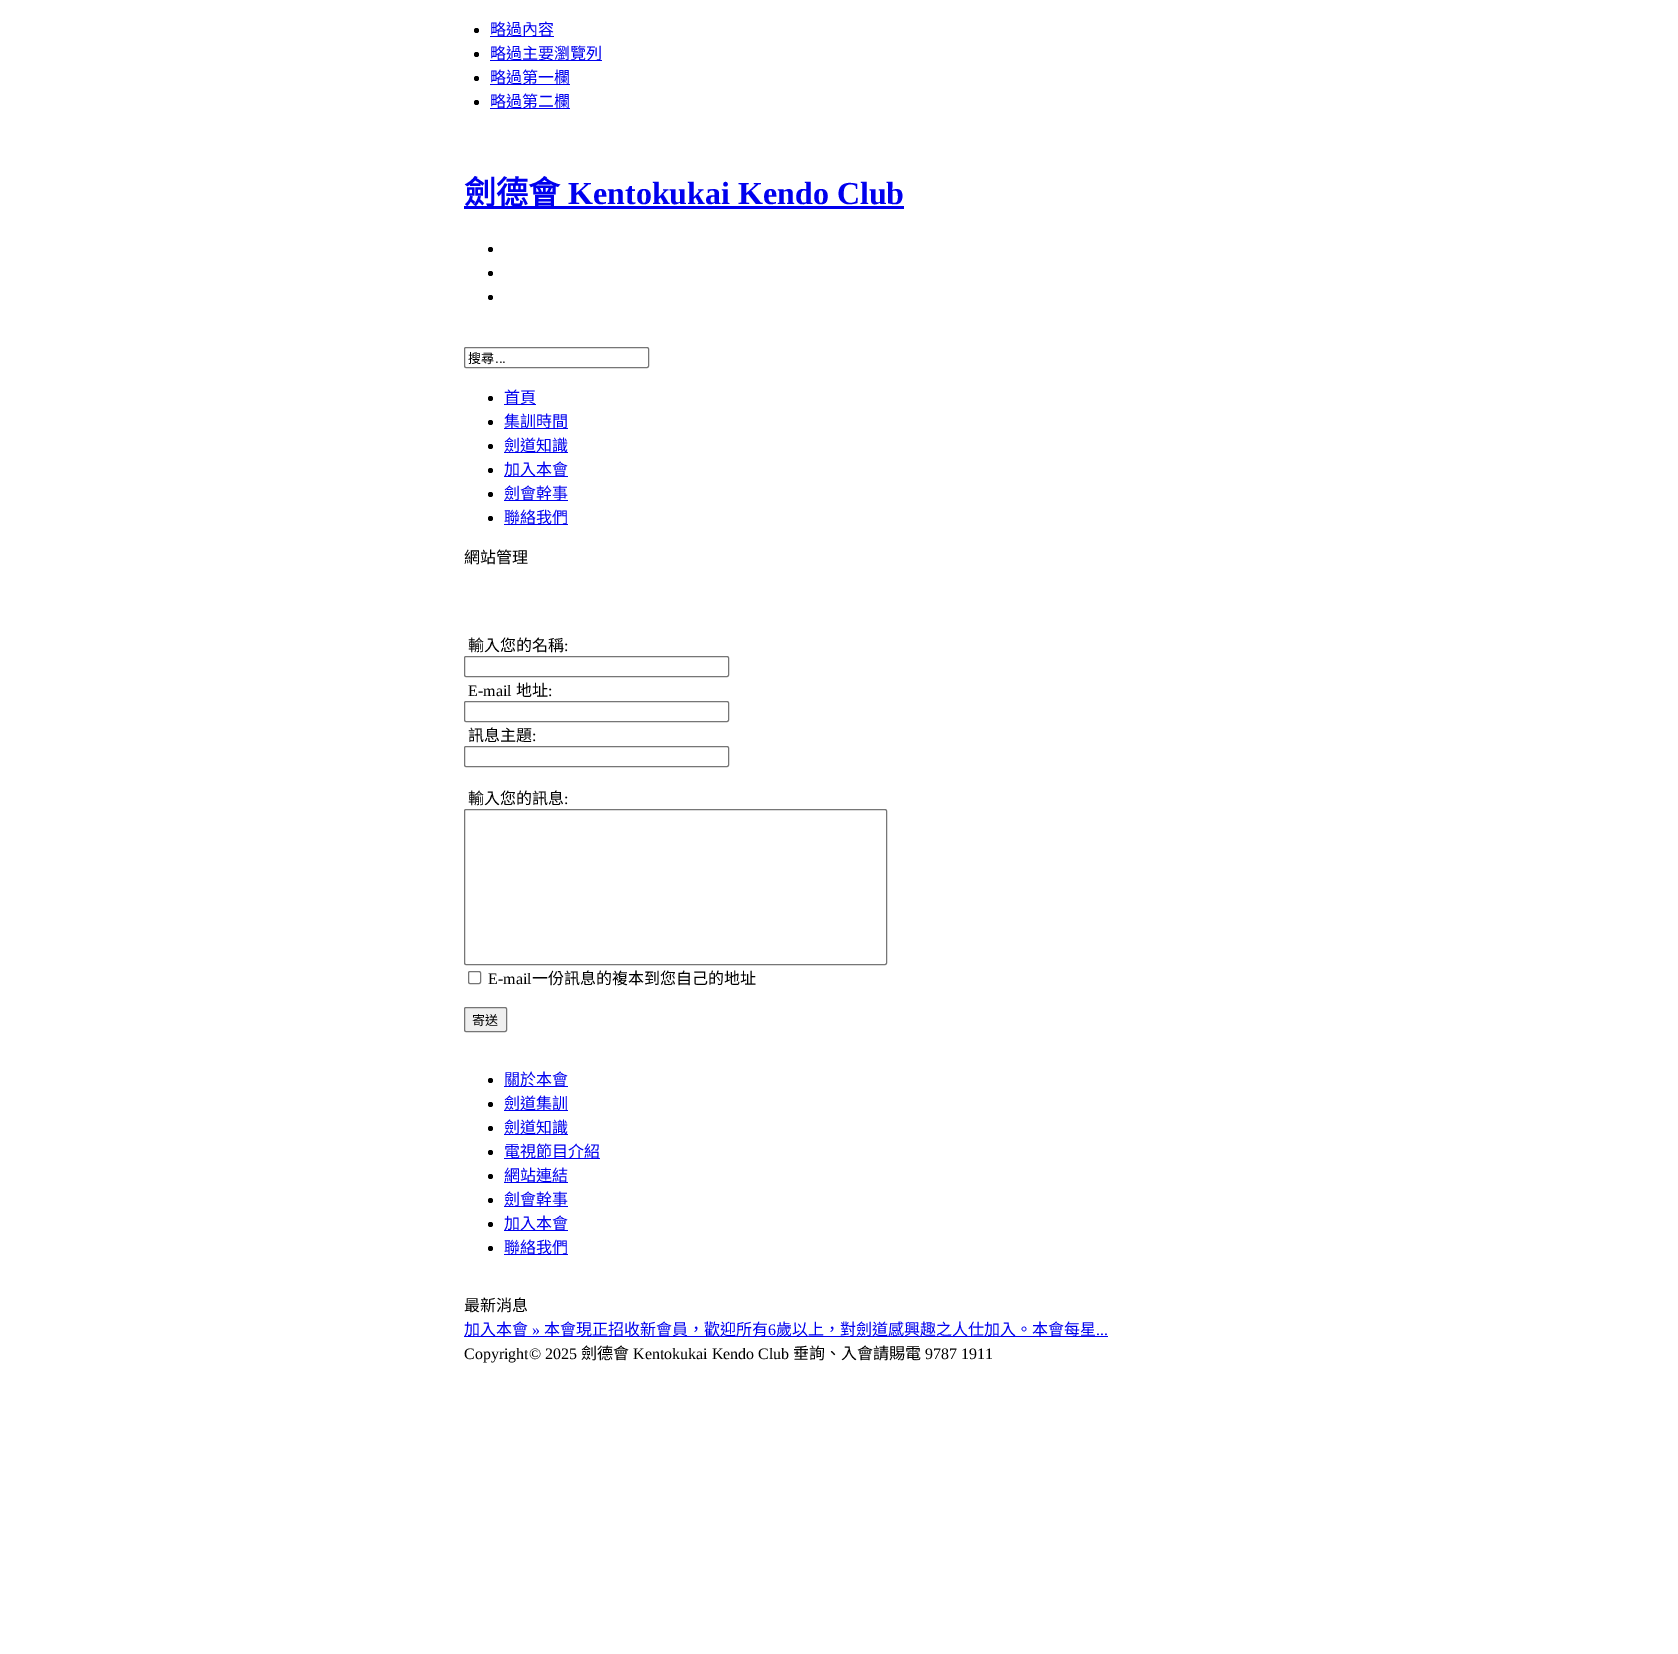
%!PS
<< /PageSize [1678 1654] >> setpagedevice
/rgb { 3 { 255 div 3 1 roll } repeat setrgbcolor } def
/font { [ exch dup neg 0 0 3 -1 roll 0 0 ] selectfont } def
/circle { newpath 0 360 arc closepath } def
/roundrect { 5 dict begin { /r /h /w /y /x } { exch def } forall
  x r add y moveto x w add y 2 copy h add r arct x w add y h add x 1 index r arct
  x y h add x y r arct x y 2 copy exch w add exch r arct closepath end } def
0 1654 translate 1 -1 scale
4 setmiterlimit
255 255 255 rgb
0 0 1678 1654 rectfill
0 0 0 rgb
476.5 30.5 2.5 circle fill
0 0 238 rgb
490 36 64 1 rectfill
0 0 0 rgb
476.5 54.5 2.5 circle fill
0 0 238 rgb
490 60 112 1 rectfill
0 0 0 rgb
476.5 78.5 2.5 circle fill
0 0 238 rgb
490 84 80 1 rectfill
0 0 0 rgb
476.5 102.5 2.5 circle fill
0 0 238 rgb
490 108 80 1 rectfill
464 206 440 3 rectfill
0 0 0 rgb
490.5 249.5 2.5 circle fill
490.5 273.5 2.5 circle fill
490.5 297.5 2.5 circle fill
118 118 118 rgb
464.5 347.5 184 20 1.5 roundrect stroke
0 0 0 rgb
490.5 398.5 2.5 circle fill
0 0 238 rgb
504 404 32 1 rectfill
0 0 0 rgb
490.5 422.5 2.5 circle fill
0 0 238 rgb
504 428 64 1 rectfill
0 0 0 rgb
490.5 446.5 2.5 circle fill
0 0 238 rgb
504 452 64 1 rectfill
0 0 0 rgb
490.5 470.5 2.5 circle fill
0 0 238 rgb
504 476 64 1 rectfill
0 0 0 rgb
490.5 494.5 2.5 circle fill
0 0 238 rgb
504 500 64 1 rectfill
0 0 0 rgb
490.5 518.5 2.5 circle fill
0 0 238 rgb
504 524 64 1 rectfill
118 118 118 rgb
464.5 656.5 264 20 1.5 roundrect stroke
464.5 701.5 264 20 1.5 roundrect stroke
464.5 746.5 264 20 1.5 roundrect stroke
464.5 809.5 422 155 1.5 roundrect stroke
468.5 971.5 12 12 1.5 roundrect stroke
239 239 239 rgb
464.5 1007.5 42 24 1.5 roundrect gsave fill grestore
118 118 118 rgb
stroke
0 0 0 rgb
490.5 1080.5 2.5 circle fill
0 0 238 rgb
504 1086 64 1 rectfill
0 0 0 rgb
490.5 1104.5 2.5 circle fill
0 0 238 rgb
504 1110 64 1 rectfill
0 0 0 rgb
490.5 1128.5 2.5 circle fill
0 0 238 rgb
504 1134 64 1 rectfill
0 0 0 rgb
490.5 1152.5 2.5 circle fill
0 0 238 rgb
504 1158 96 1 rectfill
0 0 0 rgb
490.5 1176.5 2.5 circle fill
0 0 238 rgb
504 1182 64 1 rectfill
0 0 0 rgb
490.5 1200.5 2.5 circle fill
0 0 238 rgb
504 1206 64 1 rectfill
0 0 0 rgb
490.5 1224.5 2.5 circle fill
0 0 238 rgb
504 1230 64 1 rectfill
0 0 0 rgb
490.5 1248.5 2.5 circle fill
0 0 238 rgb
504 1254 64 1 rectfill
464 1336 644 1 rectfill
/NotoSansCJKTC-Regular 16 font
[
  [(略過內容) 490 35]
  [(略過主要瀏覽列) 490 59]
  [(略過第一欄) 490 83]
  [(略過第二欄) 490 107]
] { aload pop moveto show } forall
/NotoSansCJKTC-Bold 32 font
464 204 moveto (劍德會) show
/LiberationSerif-Bold 32 font
568 204 moveto (Kentokukai Kendo Club) show
/NotoSansCJKTC-Regular 13 font
0 0 0 rgb
468 363 moveto (搜尋) show
/LiberationSans-Regular 13 font
495 363 moveto (...) show
/NotoSansCJKTC-Regular 16 font
0 0 238 rgb
[
  [(首頁) 504 403]
  [(集訓時間) 504 427]
  [(劍道知識) 504 451]
  [(加入本會) 504 475]
  [(劍會幹事) 504 499]
  [(聯絡我們) 504 523]
] { aload pop moveto show } forall
0 0 0 rgb
464 563 moveto (網站管理) show
468 651 moveto (輸入您的名稱) show
/LiberationSerif-Regular 16 font
564 651 moveto (:) show
468 696 moveto (E-mail) show
/NotoSansCJKTC-Regular 16 font
516 696 moveto (地址) show
/LiberationSerif-Regular 16 font
548 696 moveto (:) show
/NotoSansCJKTC-Regular 16 font
468 741 moveto (訊息主題) show
/LiberationSerif-Regular 16 font
532 741 moveto (:) show
/NotoSansCJKTC-Regular 16 font
468 804 moveto (輸入您的訊息) show
/LiberationSerif-Regular 16 font
564 804 moveto (:) show
488 984 moveto (E-mail) show
/NotoSansCJKTC-Regular 16 font
532 984 moveto (一份訊息的複本到您自己的地址) show
/NotoSansCJKTC-Regular 13 font
472 1025 moveto (寄送) show
/NotoSansCJKTC-Regular 16 font
0 0 238 rgb
[
  [(關於本會) 504 1085]
  [(劍道集訓) 504 1109]
  [(劍道知識) 504 1133]
  [(電視節目介紹) 504 1157]
  [(網站連結) 504 1181]
  [(劍會幹事) 504 1205]
  [(加入本會) 504 1229]
  [(聯絡我們) 504 1253]
] { aload pop moveto show } forall
0 0 0 rgb
464 1311 moveto (最新消息) show
0 0 238 rgb
464 1335 moveto (加入本會) show
/LiberationSerif-Regular 16 font
532 1335 moveto (») show
/NotoSansCJKTC-Regular 16 font
544 1335 moveto (本會現正招收新會員，歡迎所有) show
/LiberationSerif-Regular 16 font
768 1335 moveto (6) show
/NotoSansCJKTC-Regular 16 font
776 1335 moveto (歲以上，對劍道感興趣之人仕加入。本會每星) show
/LiberationSerif-Regular 16 font
1096 1335 moveto (...) show
0 0 0 rgb
464 1359 moveto (Copyright© 2025) show
/NotoSansCJKTC-Regular 16 font
581 1359 moveto (劍德會) show
/LiberationSerif-Regular 16 font
633 1359 moveto (Kentokukai Kendo Club) show
/NotoSansCJKTC-Regular 16 font
793 1359 moveto (垂詢、入會請賜電) show
/LiberationSerif-Regular 16 font
925 1359 moveto (9787 1911) show
showpage
